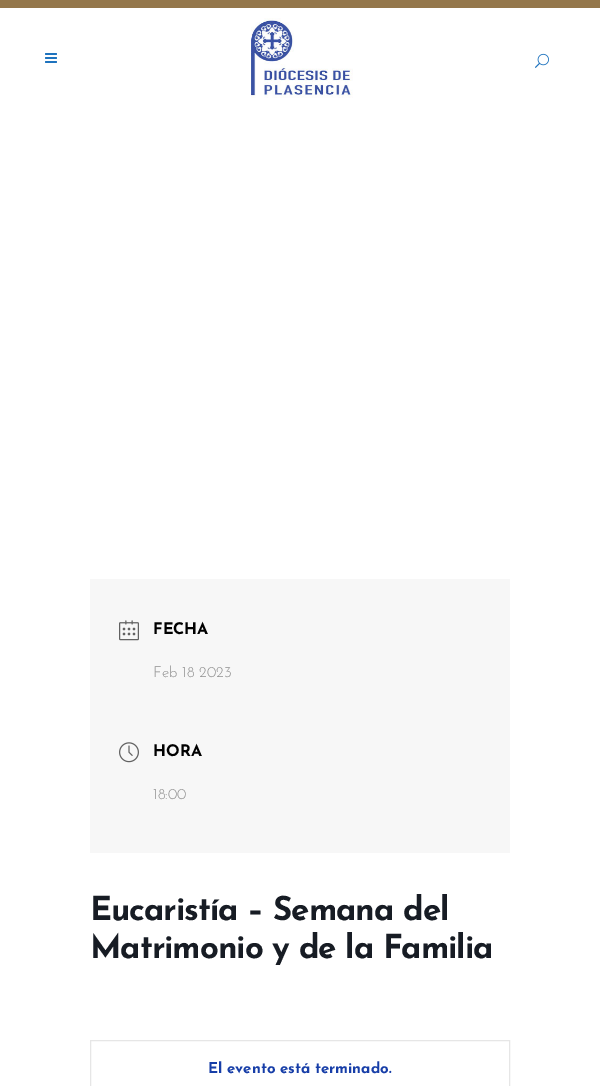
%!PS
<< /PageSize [600 1086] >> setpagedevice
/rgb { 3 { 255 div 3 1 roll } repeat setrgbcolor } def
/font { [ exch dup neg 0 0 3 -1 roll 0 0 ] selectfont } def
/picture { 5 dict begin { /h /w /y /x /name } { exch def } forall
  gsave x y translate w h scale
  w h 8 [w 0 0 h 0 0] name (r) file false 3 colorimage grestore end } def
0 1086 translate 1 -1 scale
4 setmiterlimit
255 255 255 rgb
0 0 600 1086 rectfill
148 119 75 rgb
0 0 600 8 rectfill
(img/1.rgb) 45 53 12 10 picture
(img/2.rgb) 251 18 102 80 picture
(img/3.rgb) 535 53 14 15 picture
247 247 247 rgb
90 579 420 274 rectfill
(img/4.rgb) 119 620 20 21 picture
(img/5.rgb) 119 742 20 21 picture
230 230 230 rgb
90.5 1040.5 419 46 rectstroke
/JosefinSans-Bold 16 font
0 0 0 rgb
153 634 moveto (FECHA) show
/JosefinSans-Light 15 font
141 141 141 rgb
153 677 moveto (Feb 18 2023) show
/JosefinSans-Bold 16 font
0 0 0 rgb
153 756 moveto (HORA) show
/JosefinSans-Light 15 font
141 141 141 rgb
153 799 moveto (18:00) show
/JosefinSans-Bold 33 font
23 28 36 rgb
90 920 moveto -1 0 (Eucaristía – Semana del) ashow
90 958 moveto -1 0 (Matrimonio y de la Familia) ashow
/JosefinSans-Bold 15 font
23 62 168 rgb
208 1073 moveto (El evento está terminado.) show
showpage
